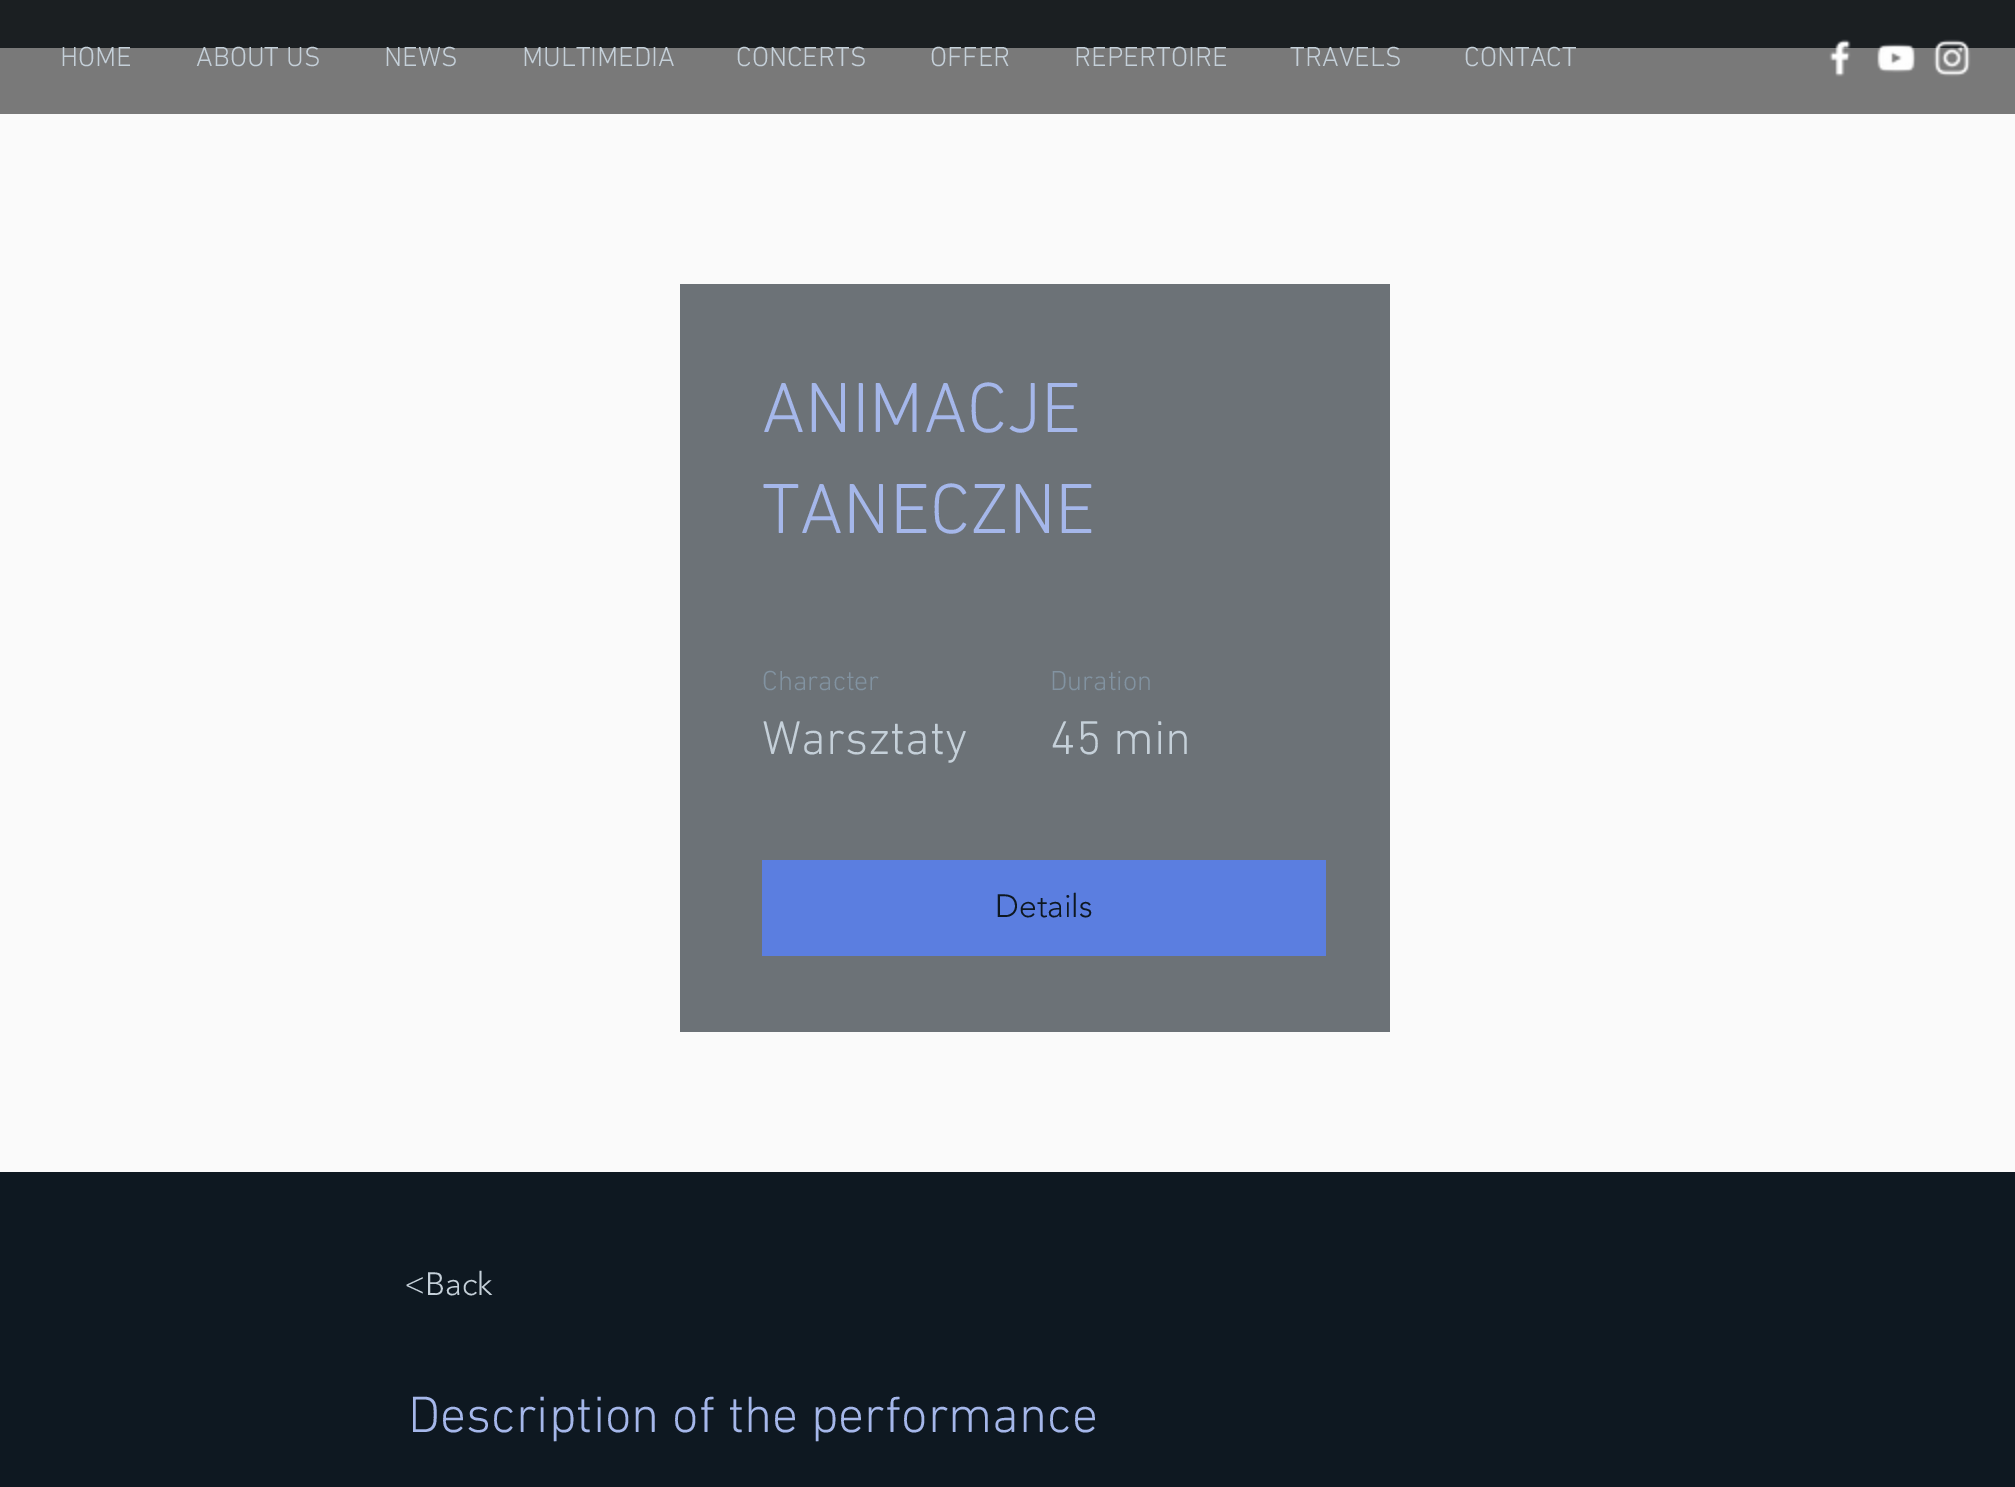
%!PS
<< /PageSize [2015 1487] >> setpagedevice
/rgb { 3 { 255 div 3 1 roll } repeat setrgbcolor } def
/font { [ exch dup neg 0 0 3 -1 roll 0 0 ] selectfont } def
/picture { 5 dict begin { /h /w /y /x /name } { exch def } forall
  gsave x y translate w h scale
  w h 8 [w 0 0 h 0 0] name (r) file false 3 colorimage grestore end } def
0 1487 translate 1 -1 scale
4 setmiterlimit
14 24 33 rgb
0 0 2015 1487 rectfill
27 31 34 rgb
0 0 2015 48 rectfill
121 121 121 rgb
0 48 2015 66 rectfill
(img/1.rgb) 1829 39 22 38 picture
(img/2.rgb) 1877 43 39 30 picture
(img/3.rgb) 1933 39 38 38 picture
[
  [0 114 2015 1058 250 250 250]
  [680 284 710 748 108 114 119]
  [762 860 564 96 91 126 224]
] { aload pop rgb rectfill } forall
/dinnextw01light-Light 28 font
197 208 217 rgb
[
  [(HOME) 60 66]
  [(ABOUT US) 196 66]
  [(NEWS) 384 66]
  [(MULTIMEDIA) 522 66]
  [(CONCERTS) 736 66]
  [(OFFER) 930 66]
  [(REPERTOIRE) 1074 66]
  [(TRAVELS) 1290 66]
  [(CONTACT) 1464 66]
] { aload pop moveto show } forall
/dinnextw01light-Light 72 font
165 183 234 rgb
762 432 moveto (ANIMACJE) show
762 533 moveto (TANECZNE) show
/dinnextw01light-Light 28 font
130 147 161 rgb
762 690 moveto (Character) show
1050 690 moveto (Duration) show
/dinnextw01light-Light 48 font
197 208 217 rgb
762 754 moveto (Warsztaty) show
1050 754 moveto (45 min) show
/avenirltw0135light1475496-Light 32 font
14 24 33 rgb
995 917 moveto (Details) show
197 208 217 rgb
404 1295 moveto (<Back) show
/dinnextw01light-Light 52 font
165 183 234 rgb
408 1432 moveto (Description of the performance) show
showpage
